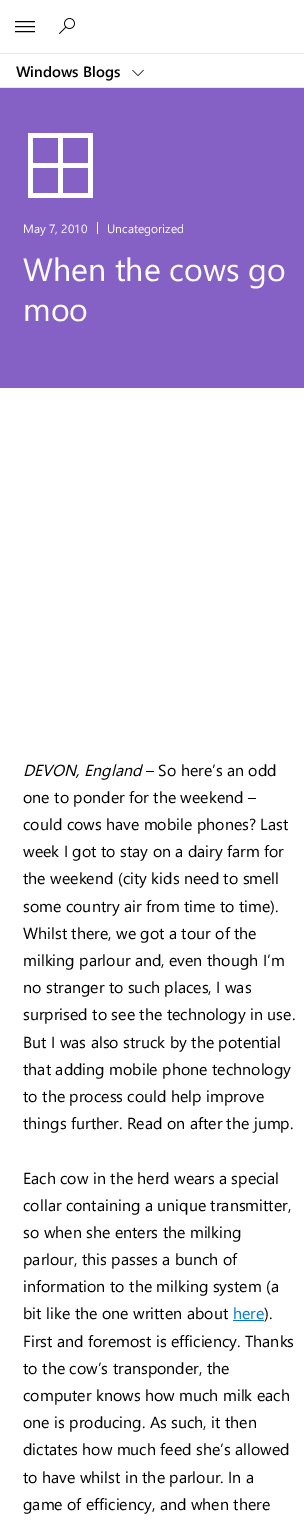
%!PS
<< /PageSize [304 1524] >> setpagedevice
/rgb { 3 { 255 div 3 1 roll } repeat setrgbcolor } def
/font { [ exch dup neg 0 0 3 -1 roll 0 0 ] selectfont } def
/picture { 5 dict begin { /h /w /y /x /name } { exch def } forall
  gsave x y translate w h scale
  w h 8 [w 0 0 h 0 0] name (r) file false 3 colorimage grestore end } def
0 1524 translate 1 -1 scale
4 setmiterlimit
255 255 255 rgb
0 0 304 1524 rectfill
230 230 230 rgb
0 53 304 1 rectfill
(img/1.rgb) 15 21 20 12 picture
(img/2.rgb) 59 18 16 16 picture
0 87 304 1 rectfill
(img/3.rgb) 132 69 12 7 picture
134 97 197 rgb
0 88 304 300 rectfill
255 255 255 rgb
28 133 moveto 93 133 lineto 93 198 lineto 28 198 lineto closepath 88 163 moveto 88 138 lineto 63 138 lineto 63 163 lineto closepath 58 138 moveto 33 138 lineto 33 163 lineto 58 163 lineto closepath 33 168 moveto 33 193 lineto 58 193 lineto 58 168 lineto closepath 63 193 moveto 88 193 lineto 88 168 lineto 63 168 lineto closepath fill
97 222 1 12 rectfill
0 120 212 rgb
233 1320 31 1 rectfill
/SegoeUI-SemiBold 15 font
0 0 0 rgb
16 77 moveto (Windows Blogs) show
/SegoeUI-Regular 12 font
255 255 255 rgb
23 233 moveto (May 7, 2010) show
107 233 moveto (Uncategorized) show
/SegoeUI-Regular 32 font
23 281 moveto (When the cows go) show
23 321 moveto (moo) show
/SegoeUI-Italic 16 font
0 0 0 rgb
23 776 moveto (DEVON, England) show
/SegoeUI-Regular 16 font
[
  [(– So here’s an odd) 146 776]
  [(one to ponder for the weekend –) 23 803]
  [(could cows have mobile phones? Last) 23 830]
  [(week I got to stay on a dairy farm for) 23 857]
  [(the weekend \(city kids need to smell) 23 884]
  [(some country air from time to time\).) 23 912]
  [(Whilst there, we got a tour of the) 23 939]
  [(milking parlour and, even though I’m) 23 966]
  [(no stranger to such places, I was) 23 993]
  [(surprised to see the technology in use.) 23 1020]
  [(But I was also struck by the potential) 23 1048]
  [(that adding mobile phone technology) 23 1075]
  [(to the process could help improve) 23 1102]
  [(things further. Read on after the jump.) 23 1129]
  [(Each cow in the herd wears a special) 23 1184]
  [(collar containing a unique transmitter,) 23 1211]
  [(so when she enters the milking) 23 1238]
  [(parlour, this passes a bunch of) 23 1265]
  [(information to the milking system \(a) 23 1292]
  [(bit like the one written about) 23 1319]
] { aload pop moveto show } forall
0 120 212 rgb
233 1319 moveto (here) show
0 0 0 rgb
[
  [(\).) 264 1319]
  [(First and foremost is efficiency. Thanks) 23 1347]
  [(to the cow’s transponder, the) 23 1374]
  [(computer knows how much milk each) 23 1401]
  [(one is producing. As such, it then) 23 1428]
  [(dictates how much feed she’s allowed) 23 1455]
  [(to have whilst in the parlour. In a) 23 1483]
  [(game of efficiency, and when there) 23 1510]
] { aload pop moveto show } forall
showpage
